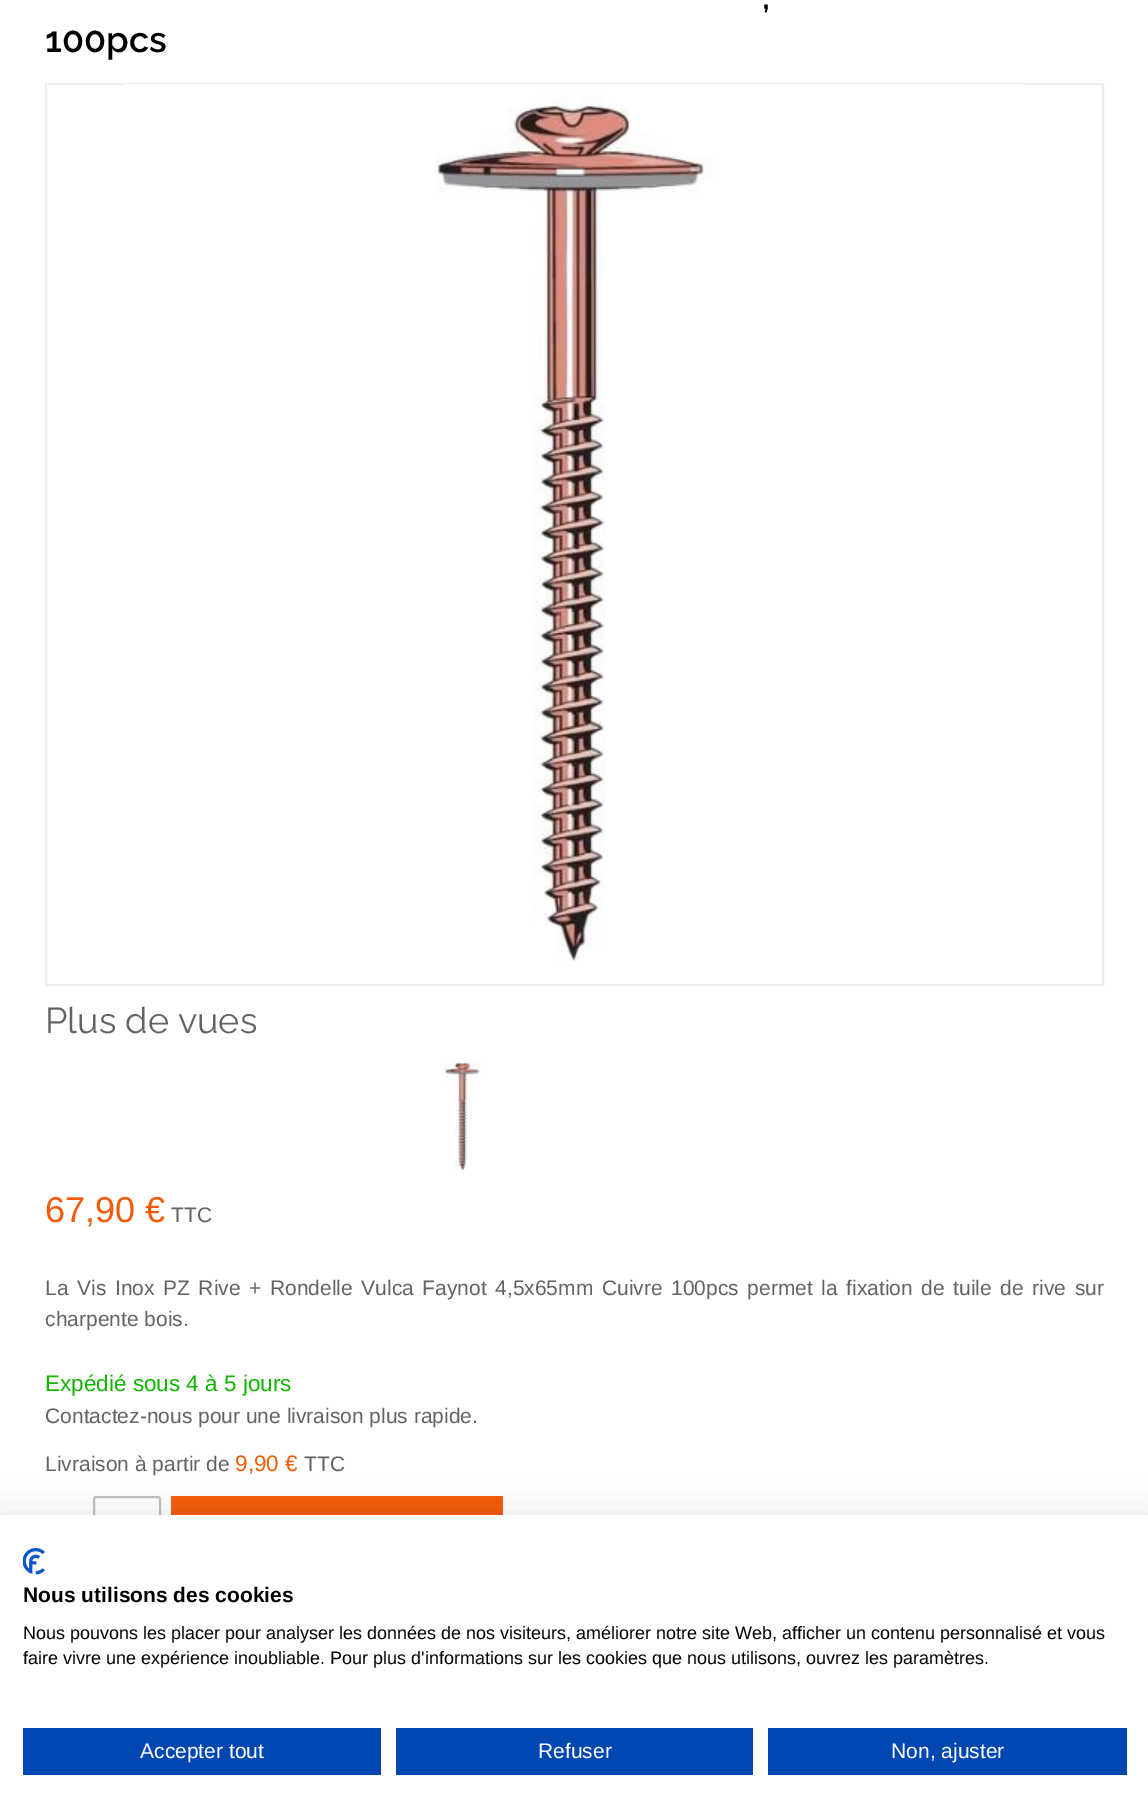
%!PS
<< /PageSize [1148 1814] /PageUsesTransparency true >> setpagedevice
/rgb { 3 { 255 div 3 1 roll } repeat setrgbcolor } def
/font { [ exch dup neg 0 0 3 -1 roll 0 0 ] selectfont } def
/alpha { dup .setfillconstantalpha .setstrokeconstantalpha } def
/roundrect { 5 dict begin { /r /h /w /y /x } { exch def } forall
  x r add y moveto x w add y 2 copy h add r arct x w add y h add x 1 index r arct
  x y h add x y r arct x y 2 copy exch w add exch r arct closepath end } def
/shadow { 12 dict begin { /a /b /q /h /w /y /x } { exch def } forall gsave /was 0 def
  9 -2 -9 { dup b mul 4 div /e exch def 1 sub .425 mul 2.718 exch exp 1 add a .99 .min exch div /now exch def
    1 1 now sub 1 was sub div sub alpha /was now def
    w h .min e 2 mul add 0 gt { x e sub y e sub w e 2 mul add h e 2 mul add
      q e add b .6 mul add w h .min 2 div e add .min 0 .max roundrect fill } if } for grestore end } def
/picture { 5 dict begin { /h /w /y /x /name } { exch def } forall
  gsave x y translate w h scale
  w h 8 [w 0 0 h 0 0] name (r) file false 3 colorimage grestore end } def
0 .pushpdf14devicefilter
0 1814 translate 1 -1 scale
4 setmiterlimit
255 255 255 rgb
0 0 1148 1814 rectfill
237 237 237 rgb
2 setlinewidth
46 84 1057 901 rectstroke
(img/1.rgb) 124 84 901 877 picture
(img/2.rgb) 443 1061 38 112 picture
192 192 192 rgb
94 1497 66 58 2 roundrect stroke
244 91 8 rgb
171 1496 332 19 rectfill
0 0 0 rgb
0 1515 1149 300 0 18 0.1 shadow
255 255 255 rgb
0 1515 1148 299 rectfill
(img/3.rgb) 23 1548 22 27 picture
[
  [23 1728 358 47 0 71 178]
  [396 1728 357 47 0 71 178]
  [768 1728 359 47 0 71 178]
] { aload pop rgb rectfill } forall
/Raleway-SemiBold 36 font
0 0 0 rgb
762 9 moveto (,) show
45 52 moveto (100pcs) show
/Raleway-Regular 36 font
99 99 99 rgb
45 1033 moveto (Plus de vues) show
/LiberationSans-Regular 36 font
244 91 8 rgb
45 1222 moveto (67,90 €) show
/LiberationSans-Regular 21 font
99 99 99 rgb
171 1222 moveto (TTC) show
45 1295 moveto 2.75 0 32 (La Vis Inox PZ Rive + Rondelle Vulca Faynot 4,5x65mm Cuivre 100pcs permet la fixation de tuile de rive sur) widthshow
45 1326 moveto (charpente bois.) show
/LiberationSans-Regular 22.5 font
17 180 0 rgb
45 1391 moveto (Expédié sous 4 à 5 jours) show
/LiberationSans-Regular 21 font
99 99 99 rgb
45 1423 moveto (Contactez-nous pour une livraison plus rapide.) show
45 1471 moveto (Livraison à partir de) show
/LiberationSans-Regular 22.5 font
244 91 8 rgb
235 1471 moveto (9,90 €) show
/LiberationSans-Regular 21 font
99 99 99 rgb
304 1471 moveto (TTC) show
/LiberationSans-Bold 21 font
0 0 0 rgb
23 1602 moveto (Nous utilisons des cookies) show
/LiberationSans-Regular 18 font
23 1639 moveto (Nous pouvons les placer pour analyser les données de nos visiteurs, améliorer notre site Web, afficher un contenu personnalisé et vous) show
23 1664 moveto (faire vivre une expérience inoubliable. Pour plus d'informations sur les cookies que nous utilisons, ouvrez les paramètres.) show
/LiberationSans-Regular 21 font
255 255 255 rgb
[
  [(Accepter tout) 140 1758]
  [(Refuser) 538 1758]
  [(Non, ajuster) 891 1758]
] { aload pop moveto show } forall
.poppdf14devicefilter showpage
